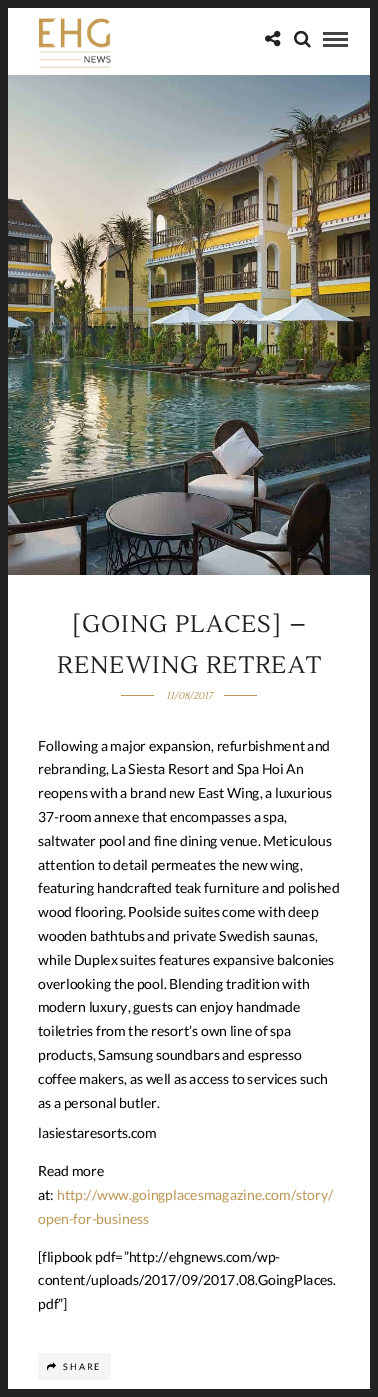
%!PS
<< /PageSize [378 1397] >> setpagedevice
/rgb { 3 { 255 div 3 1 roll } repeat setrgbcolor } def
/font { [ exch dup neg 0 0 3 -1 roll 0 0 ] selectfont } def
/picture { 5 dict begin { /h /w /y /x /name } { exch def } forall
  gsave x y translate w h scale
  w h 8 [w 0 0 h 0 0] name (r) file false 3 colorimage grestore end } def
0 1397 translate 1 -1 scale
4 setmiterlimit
255 255 255 rgb
0 0 378 1397 rectfill
[
  [0 0 378 8 34 34 34]
  [0 1389 378 8 34 34 34]
  [0 0 8 1397 34 34 34]
] { aload pop rgb rectfill } forall
(img/1.rgb) 39 18 72 50 picture
(img/2.rgb) 265 30 16 17 picture
(img/3.rgb) 294 30 17 18 picture
[
  [323 32 25 3 68 68 68]
  [323 38 25 3 68 68 68]
  [323 44 25 3 68 68 68]
] { aload pop rgb rectfill } forall
(img/4.rgb) 8 75 362 500 picture
[
  [121 695 136 1 190 150 86]
  [154 695 70 1 255 255 255]
  [38 1353 73 27 245 245 245]
] { aload pop rgb rectfill } forall
(img/5.rgb) 47 1362 9 9 picture
34 34 34 rgb
370 0 8 1397 rectfill
/Lustria-Regular 24 font
72 632 moveto 1 0 ([GOING PLACES] –) ashow
57 673 moveto 1 0 (RENEWING RETREAT) ashow
/Lustria-Italic 10 font
190 150 86 rgb
166 699 moveto (11/08/2017) show
/Lato-Regular 14 font
0 0 0 rgb
[
  [(Following a major expansion, refurbishment and) 38 751]
  [(rebranding, La Siesta Resort and Spa Hoi An) 38 774]
  [(reopens with a brand new East Wing, a luxurious) 38 798]
  [(37-room annexe that encompasses a spa,) 38 822]
  [(saltwater pool and fine dining venue. Meticulous) 38 846]
  [(attention to detail permeates the new wing,) 38 870]
  [(featuring handcrafted teak furniture and polished) 38 893]
  [(wood flooring. Poolside suites come with deep) 38 917]
  [(wooden bathtubs and private Swedish saunas,) 38 941]
  [(while Duplex suites features expansive balconies) 38 965]
  [(overlooking the pool. Blending tradition with) 38 989]
  [(modern luxury, guests can enjoy handmade) 38 1012]
  [(toiletries from the resort’s own line of spa) 38 1036]
  [(products, Samsung soundbars and espresso) 38 1060]
  [(coffee makers, as well as access to services such) 38 1084]
  [(as a personal butler.) 38 1108]
  [(lasiestaresorts.com) 38 1138]
  [(Read more) 38 1176]
  [(at:) 38 1200]
] { aload pop moveto show } forall
190 150 86 rgb
57 1200 moveto (http://www.goingplacesmagazine.com/story/) show
38 1224 moveto (open-for-business) show
0 0 0 rgb
[
  [([flipbook pdf=”http://ehgnews.com/wp-) 38 1262]
  [(content/uploads/2017/09/2017.08.GoingPlaces.) 38 1285]
  [(pdf”]) 38 1309]
] { aload pop moveto show } forall
/Lato-Regular 9 font
63 1370 moveto 2 0 (SHARE) ashow
showpage
